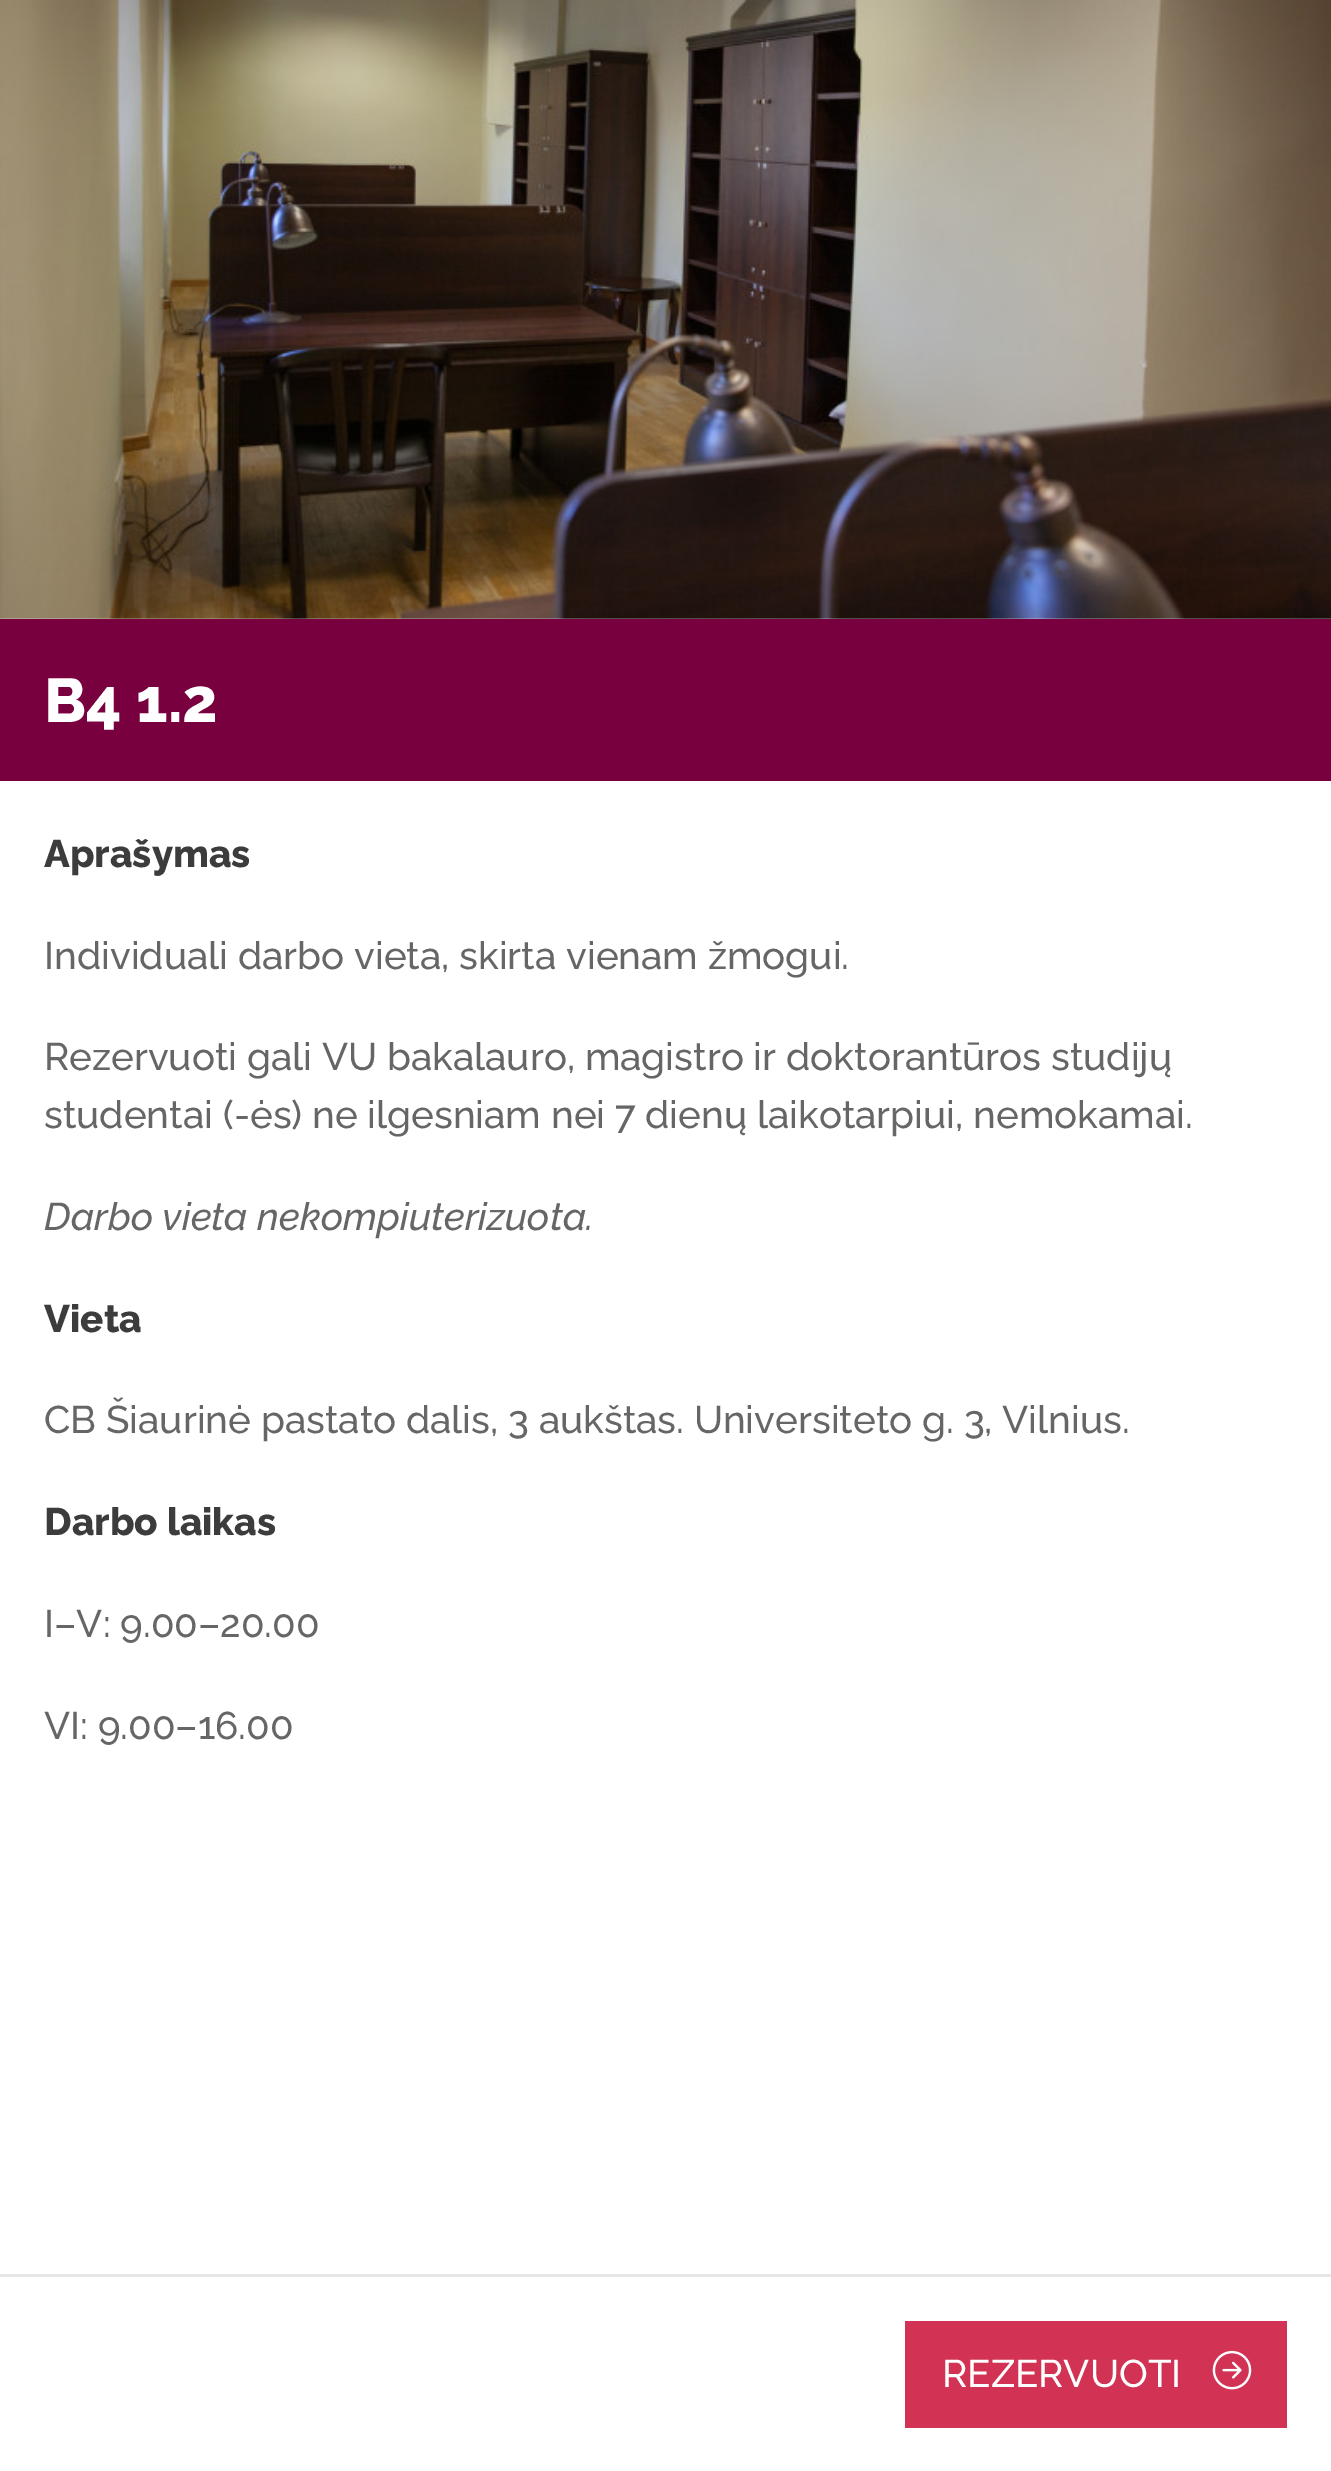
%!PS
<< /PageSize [1331 2471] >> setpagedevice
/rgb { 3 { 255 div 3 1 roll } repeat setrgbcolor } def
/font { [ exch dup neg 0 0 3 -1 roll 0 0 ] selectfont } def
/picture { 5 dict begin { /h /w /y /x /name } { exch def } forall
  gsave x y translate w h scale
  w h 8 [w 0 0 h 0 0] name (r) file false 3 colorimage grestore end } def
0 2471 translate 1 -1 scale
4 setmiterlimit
255 255 255 rgb
0 0 1331 2471 rectfill
(img/1.rgb) 0 0 1331 619 picture
[
  [0 619 1331 162 120 0 63]
  [0 2274 1331 3 231 231 231]
  [905 2321 382 107 210 50 84]
] { aload pop rgb rectfill } forall
(img/2.rgb) 1212 2350 40 40 picture
/Raleway-ExtraBold 61.5 font
255 255 255 rgb
44 722 moveto (B4 1.2) show
/Raleway-ExtraBold 38.5 font
61 60 60 rgb
44 867 moveto (Aprašymas) show
/Raleway-Medium 38.5 font
102 102 102 rgb
[
  [(Individuali darbo vieta, skirta vienam žmogui.) 44 969]
  [(Rezervuoti gali VU bakalauro, magistro ir doktorantūros studijų) 44 1070]
  [(studentai \(-ės\) ne ilgesniam nei 7 dienų laikotarpiui, nemokamai.) 44 1128]
] { aload pop moveto show } forall
/Raleway-MediumItalic 38.5 font
44 1230 moveto (Darbo vieta nekompiuterizuota.) show
/Raleway-ExtraBold 38.5 font
61 60 60 rgb
44 1332 moveto (Vieta) show
/Raleway-Medium 38.5 font
102 102 102 rgb
44 1433 moveto (CB Šiaurinė pastato dalis, 3 aukštas. Universiteto g. 3, Vilnius.) show
/Raleway-ExtraBold 38.5 font
61 60 60 rgb
44 1535 moveto (Darbo laikas) show
/Raleway-Medium 38.5 font
102 102 102 rgb
44 1637 moveto (I–V: 9.00–20.00) show
44 1739 moveto (VI: 9.00–16.00) show
255 255 255 rgb
942 2387 moveto (REZERVUOTI) show
showpage
